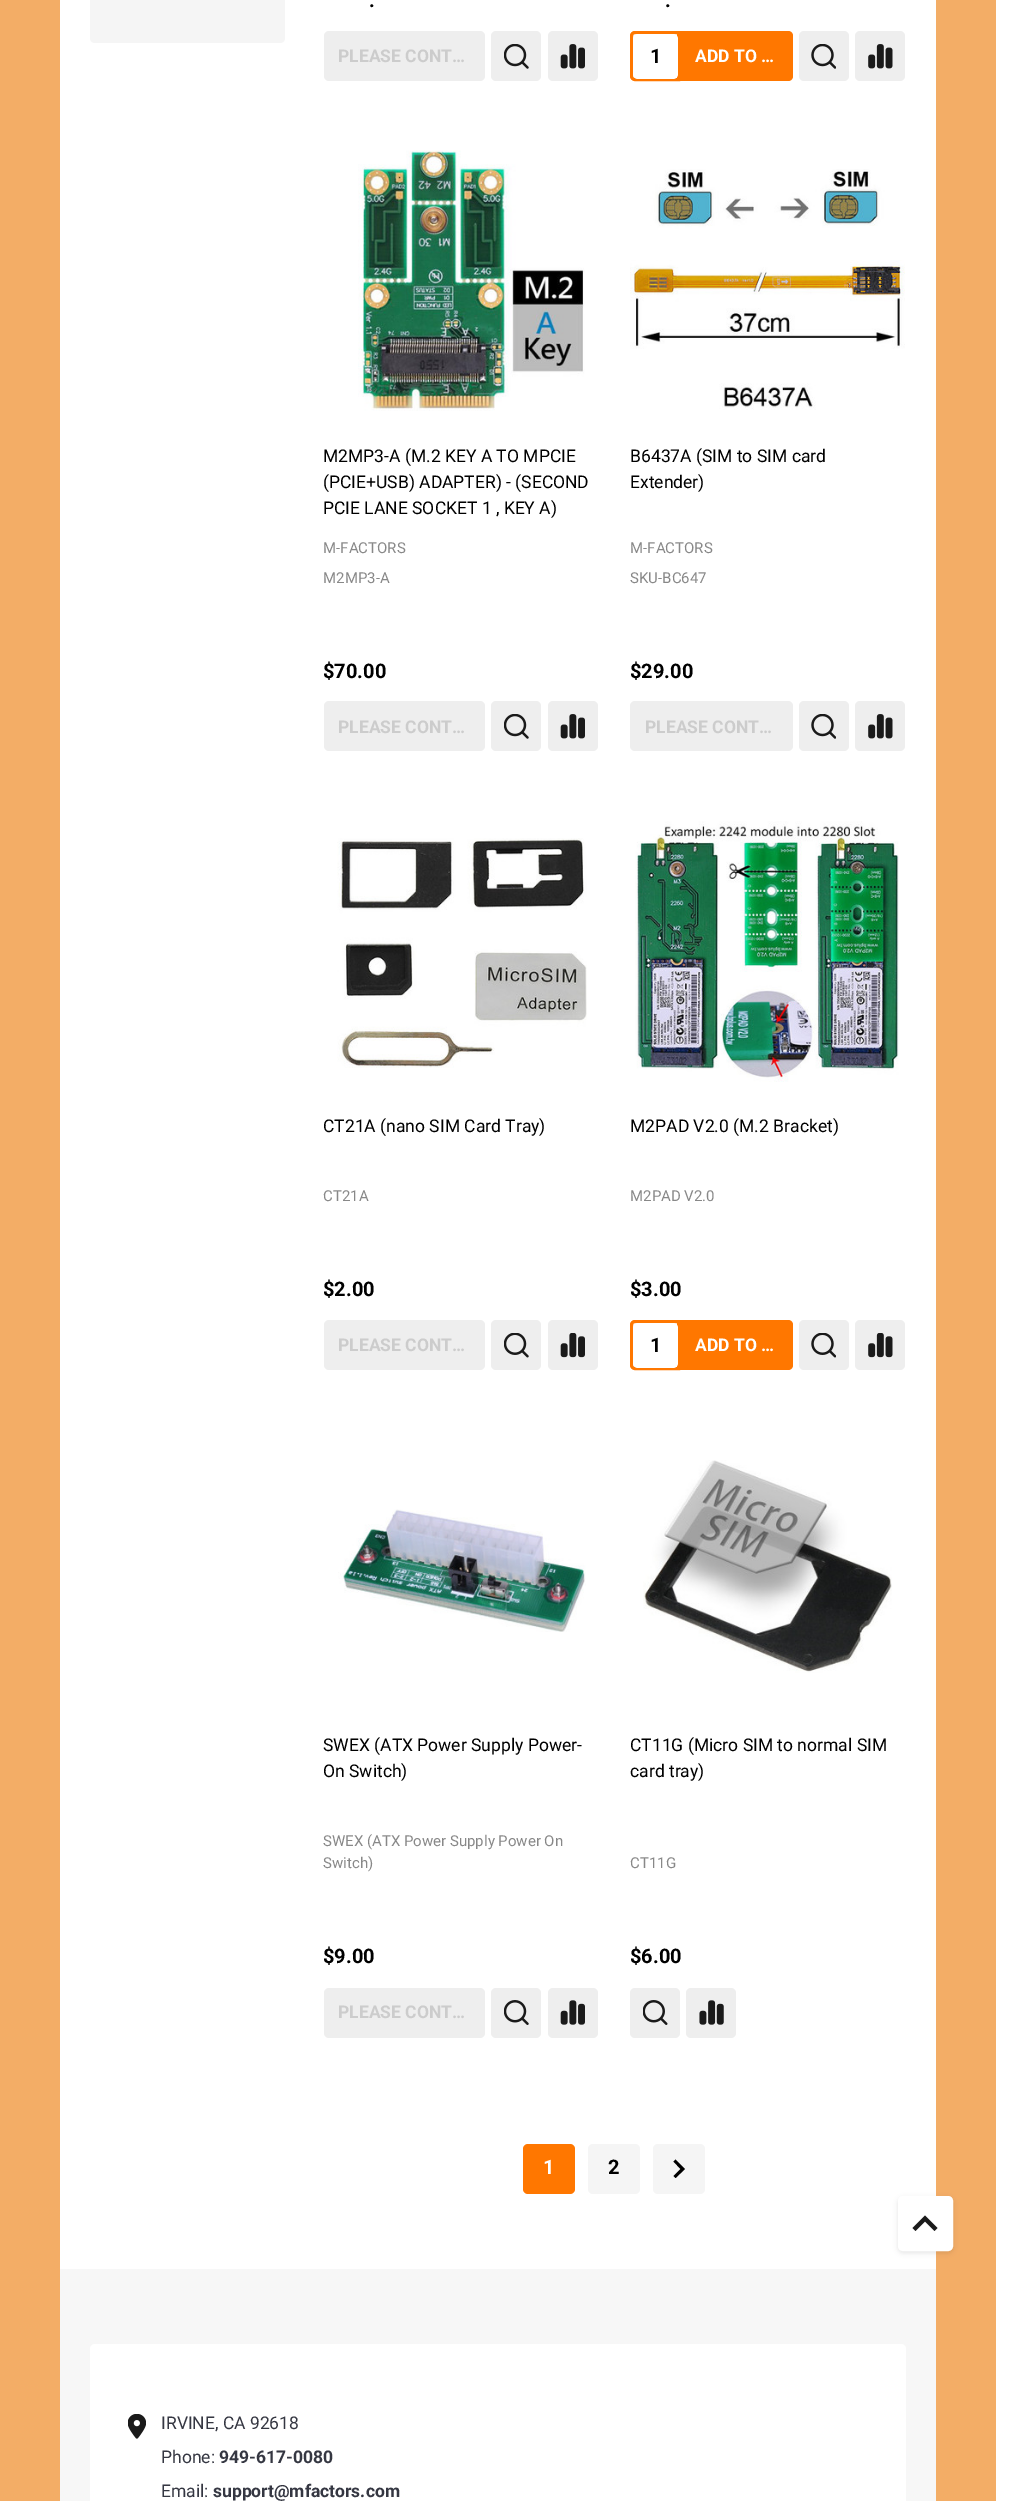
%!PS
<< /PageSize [1015 2501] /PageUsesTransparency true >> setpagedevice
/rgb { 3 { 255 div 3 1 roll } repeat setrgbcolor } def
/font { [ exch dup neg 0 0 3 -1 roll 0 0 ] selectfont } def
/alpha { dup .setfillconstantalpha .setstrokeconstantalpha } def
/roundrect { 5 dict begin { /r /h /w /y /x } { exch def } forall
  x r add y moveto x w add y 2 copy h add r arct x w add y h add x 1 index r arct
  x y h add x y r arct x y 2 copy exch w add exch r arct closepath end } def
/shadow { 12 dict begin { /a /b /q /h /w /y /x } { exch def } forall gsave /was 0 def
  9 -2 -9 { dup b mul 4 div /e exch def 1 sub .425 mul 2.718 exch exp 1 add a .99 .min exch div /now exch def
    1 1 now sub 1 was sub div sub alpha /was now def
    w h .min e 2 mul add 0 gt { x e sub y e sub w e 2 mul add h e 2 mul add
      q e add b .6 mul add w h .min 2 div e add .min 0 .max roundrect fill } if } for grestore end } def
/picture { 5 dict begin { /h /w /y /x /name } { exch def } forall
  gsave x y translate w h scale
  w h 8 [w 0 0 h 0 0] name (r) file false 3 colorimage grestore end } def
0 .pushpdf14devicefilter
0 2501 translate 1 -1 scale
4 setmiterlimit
255 255 255 rgb
0 0 1015 2501 rectfill
243 173 102 rgb
936 0 60 2501 rectfill
0 0 60 2501 rectfill
245 245 245 rgb
90 -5 moveto 285 -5 lineto 285 38 lineto 285 41 283 43 280 43 curveto 95 43 lineto 92 43 90 41 90 38 curveto closepath fill
238 238 238 rgb
324 31 161 50 5 roundrect fill
491 31 50 50 5 roundrect fill
(img/1.rgb) 504 44 25 25 picture
548 31 50 50 5 roundrect fill
(img/2.rgb) 560 44 25 25 picture
255 119 0 rgb
3 setlinewidth
635 32.5 moveto 678.5 32.5 lineto 678.5 79.5 lineto 635 79.5 lineto 633 79.5 631.5 78 631.5 76 curveto 631.5 36 lineto 631.5 34 633 32.5 635 32.5 curveto closepath stroke
255 255 255 rgb
633 34 45 45 5 roundrect fill
255 119 0 rgb
680 31 moveto 788 31 lineto 791 31 793 33 793 36 curveto 793 76 lineto 793 79 791 81 788 81 curveto 680 81 lineto closepath fill
238 238 238 rgb
799 31 50 50 5 roundrect fill
(img/3.rgb) 811 44 25 25 picture
855 31 50 50 5 roundrect fill
(img/4.rgb) 868 44 25 25 picture
(img/5.rgb) 358 150 227 261 picture
324 701 161 50 5 roundrect fill
491 701 50 50 5 roundrect fill
(img/1.rgb) 504 714 25 25 picture
548 701 50 50 5 roundrect fill
(img/2.rgb) 560 714 25 25 picture
(img/6.rgb) 630 169 275 241 picture
630 701 163 50 5 roundrect fill
799 701 50 50 5 roundrect fill
(img/3.rgb) 811 714 25 25 picture
855 701 50 50 5 roundrect fill
(img/4.rgb) 868 714 25 25 picture
(img/7.rgb) 337 838 250 230 picture
324 1320 161 50 5 roundrect fill
491 1320 50 50 5 roundrect fill
(img/8.rgb) 504 1333 25 25 picture
548 1320 50 50 5 roundrect fill
(img/9.rgb) 560 1333 25 25 picture
(img/10.rgb) 635 821 264 261 picture
255 119 0 rgb
635 1321.5 moveto 678.5 1321.5 lineto 678.5 1368.5 lineto 635 1368.5 lineto 633 1368.5 631.5 1367 631.5 1365 curveto 631.5 1325 lineto 631.5 1323 633 1321.5 635 1321.5 curveto closepath stroke
255 255 255 rgb
633 1323 45 45 5 roundrect fill
255 119 0 rgb
680 1320 moveto 788 1320 lineto 791 1320 793 1322 793 1325 curveto 793 1365 lineto 793 1368 791 1370 788 1370 curveto 680 1370 lineto closepath fill
238 238 238 rgb
799 1320 50 50 5 roundrect fill
(img/11.rgb) 811 1333 25 25 picture
855 1320 50 50 5 roundrect fill
(img/12.rgb) 868 1333 25 25 picture
(img/13.rgb) 338 1509 248 123 picture
324 1988 161 50 5 roundrect fill
491 1988 50 50 5 roundrect fill
(img/14.rgb) 504 2000 25 25 picture
548 1988 50 50 5 roundrect fill
(img/15.rgb) 560 2000 25 25 picture
(img/16.rgb) 643 1460 249 213 picture
630 1988 50 50 5 roundrect fill
(img/17.rgb) 643 2000 25 25 picture
686 1988 50 50 5 roundrect fill
(img/18.rgb) 699 2000 25 25 picture
255 119 0 rgb
523 2144 52 50 5 roundrect fill
245 245 245 rgb
588 2144 52 50 5 roundrect fill
653 2144 52 50 5 roundrect fill
0 0 0 rgb
675.5 2159.5 moveto 673.5 2161.5 lineto 680.5 2169 lineto 673.5 2176 lineto 675.5 2178 lineto 685 2169 lineto closepath fill
898 2198 55 55 5 2.5 0.1 shadow
255 255 255 rgb
899.5 2197.5 52 52 3.5 roundrect gsave fill grestore
stroke
26 26 26 rgb
915.5 2231 moveto 925 2221.5 lineto 934.5 2231 lineto 937.5 2228 lineto 925 2215.5 lineto 912.5 2228 lineto closepath fill
247 247 247 rgb
60 2269 876 232 rectfill
255 255 255 rgb
90 2344 816 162 5 roundrect fill
(img/19.rgb) 128 2414 18 25 picture
/Roboto-Bold 20 font
0 0 0 rgb
369 7 moveto (.) show
/Roboto-Bold 17.5 font
204 204 204 rgb
338 62 moveto (PLEASE CONT…) show
/Roboto-Bold 20 font
0 0 0 rgb
665 7 moveto (.) show
650 63 moveto (1) show
/Roboto-Bold 17.5 font
255 255 255 rgb
695 62 moveto (ADD TO …) show
/Roboto-Regular 17.5 font
0 0 0 rgb
[
  [(M2MP3-A \(M.2 KEY A TO MPCIE) 323 462]
  [(\(PCIE+USB\) ADAPTER\) - \(SECOND) 323 488]
  [(PCIE LANE SOCKET 1 , KEY A\)) 323 514]
] { aload pop moveto show } forall
/Roboto-Regular 15 font
136 136 136 rgb
323 553 moveto (M-FACTORS) show
323 583 moveto (M2MP3-A) show
/Roboto-Bold 20 font
0 0 0 rgb
323 678 moveto ($70.00) show
/Roboto-Bold 17.5 font
204 204 204 rgb
338 733 moveto (PLEASE CONT…) show
/Roboto-Regular 17.5 font
0 0 0 rgb
630 462 moveto (B6437A \(SIM to SIM card) show
630 488 moveto (Extender\)) show
/Roboto-Regular 15 font
136 136 136 rgb
630 553 moveto (M-FACTORS) show
630 583 moveto (SKU-BC647) show
/Roboto-Bold 20 font
0 0 0 rgb
630 678 moveto ($29.00) show
/Roboto-Bold 17.5 font
204 204 204 rgb
645 733 moveto (PLEASE CONT…) show
/Roboto-Regular 17.5 font
0 0 0 rgb
323 1132 moveto (CT21A \(nano SIM Card Tray\)) show
/Roboto-Regular 15 font
136 136 136 rgb
323 1201 moveto (CT21A) show
/Roboto-Bold 20 font
0 0 0 rgb
323 1296 moveto ($2.00) show
/Roboto-Bold 17.5 font
204 204 204 rgb
338 1351 moveto (PLEASE CONT…) show
/Roboto-Regular 17.5 font
0 0 0 rgb
630 1132 moveto (M2PAD V2.0 \(M.2 Bracket\)) show
/Roboto-Regular 15 font
136 136 136 rgb
630 1201 moveto (M2PAD V2.0) show
/Roboto-Bold 20 font
0 0 0 rgb
630 1296 moveto ($3.00) show
650 1352 moveto (1) show
/Roboto-Bold 17.5 font
255 255 255 rgb
695 1351 moveto (ADD TO …) show
/Roboto-Regular 17.5 font
0 0 0 rgb
323 1751 moveto (SWEX \(ATX Power Supply Power-) show
323 1777 moveto (On Switch\)) show
/Roboto-Regular 15 font
136 136 136 rgb
323 1846 moveto (SWEX \(ATX Power Supply Power On) show
323 1868 moveto (Switch\)) show
/Roboto-Bold 20 font
0 0 0 rgb
323 1963 moveto ($9.00) show
/Roboto-Bold 17.5 font
204 204 204 rgb
338 2018 moveto (PLEASE CONT…) show
/Roboto-Regular 17.5 font
0 0 0 rgb
630 1751 moveto (CT11G \(Micro SIM to normal SIM) show
630 1777 moveto (card tray\)) show
/Roboto-Regular 15 font
136 136 136 rgb
630 1868 moveto (CT11G) show
/Roboto-Bold 20 font
0 0 0 rgb
630 1963 moveto ($6.00) show
255 255 255 rgb
543 2174 moveto (1) show
0 0 0 rgb
608 2174 moveto (2) show
/Roboto-Regular 17.5 font
53 55 66 rgb
161 2429 moveto (IRVINE, CA 92618) show
161 2463 moveto (Phone:) show
/Roboto-Bold 17.5 font
219 2463 moveto (949-617-0080) show
/Roboto-Regular 17.5 font
161 2497 moveto (Email:) show
/Roboto-Bold 17.5 font
213 2497 moveto (support@mfactors.com) show
.poppdf14devicefilter showpage
